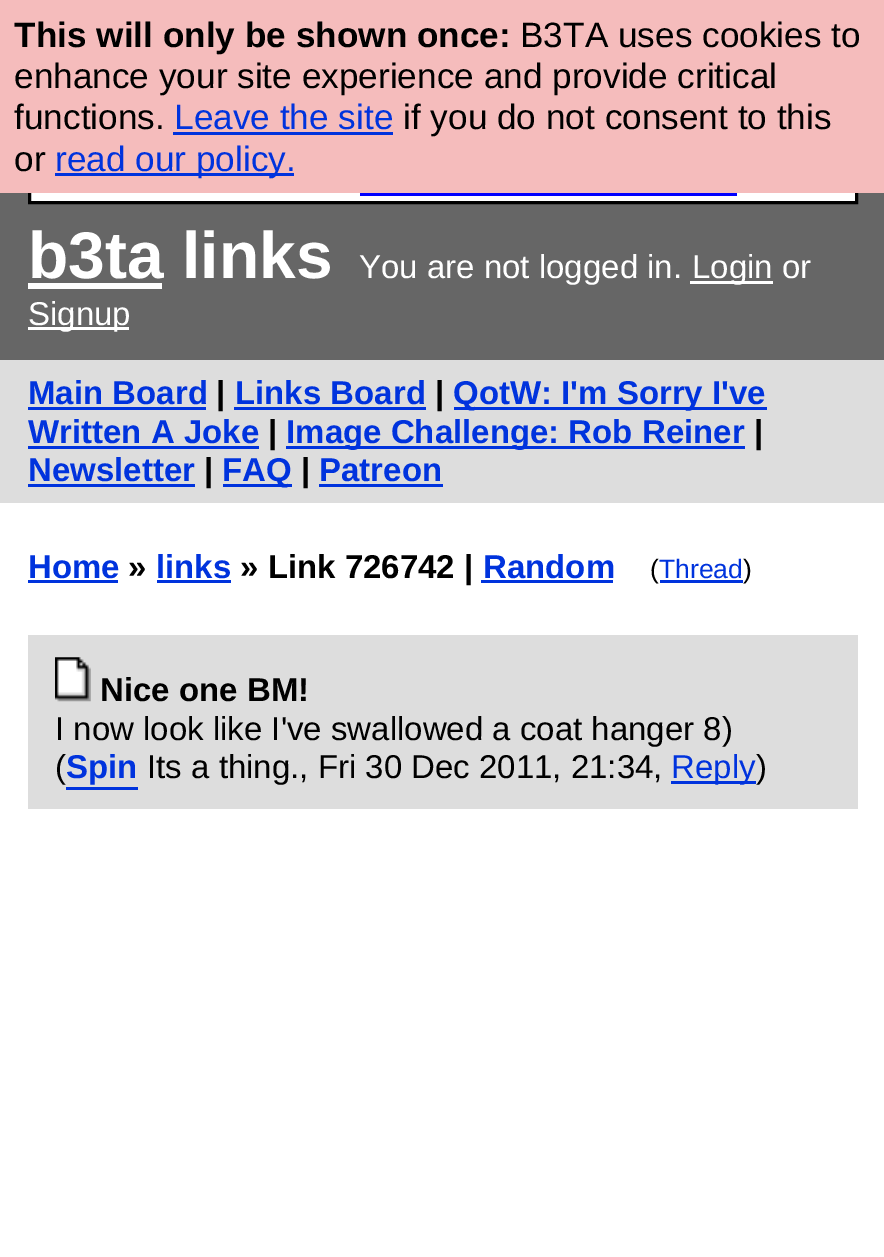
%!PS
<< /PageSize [884 1257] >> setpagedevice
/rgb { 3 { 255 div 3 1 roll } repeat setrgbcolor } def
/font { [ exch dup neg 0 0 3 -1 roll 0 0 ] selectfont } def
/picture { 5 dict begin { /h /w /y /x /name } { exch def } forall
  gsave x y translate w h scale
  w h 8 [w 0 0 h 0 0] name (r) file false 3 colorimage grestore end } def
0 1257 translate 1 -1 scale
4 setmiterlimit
255 255 255 rgb
0 0 884 1257 rectfill
102 102 102 rgb
0 193 884 167 rectfill
255 255 255 rgb
31 193 824 8 rectfill
0 0 0 rgb
3 setlinewidth
29.5 29.5 827 173 rectstroke
[
  [0 0 884 193 245 188 188]
  [173 132 220 3 0 51 221]
  [55 173 239 3 0 51 221]
  [360 193 377 3 0 0 255]
  [28 283 134 6 255 255 255]
  [690 281 83 3 255 255 255]
  [28 327 101 3 255 255 255]
  [0 360 884 143 221 221 221]
  [28 407 178 3 0 51 221]
  [234 407 192 3 0 51 221]
  [454 407 313 3 0 51 221]
  [28 446 231 3 0 51 221]
  [286 446 459 3 0 51 221]
  [28 484 167 3 0 51 221]
  [223 484 69 3 0 51 221]
  [319 484 124 3 0 51 221]
  [28 580 90 3 0 51 221]
  [157 580 74 3 0 51 221]
  [481 580 132 3 0 51 221]
  [660 580 83 3 0 51 221]
  [28 635 830 174 221 221 221]
] { aload pop rgb rectfill } forall
(img/1.rgb) 55 657 36 45 picture
0 51 221 rgb
66 787 72 3 rectfill
671 781 85 3 rectfill
/LiberationSans-Bold 35.2 font
0 0 0 rgb
14 47 moveto (This will only be shown once:) show
/LiberationSans-Regular 35.2 font
[
  [(B3TA uses cookies to) 520 47]
  [(enhance your site experience and provide critical) 14 88]
  [(functions.) 14 129]
] { aload pop moveto show } forall
0 51 221 rgb
174 129 moveto (Leave the site) show
0 0 0 rgb
403 129 moveto (if you do not consent to this) show
14 171 moveto (or) show
0 51 221 rgb
55 171 moveto (read our policy.) show
/LiberationSans-Bold 66 font
255 255 255 rgb
28 278 moveto (b3ta links) show
/LiberationSans-Regular 33 font
[
  [(You are not logged in.) 359 278]
  [(Login or) 692 278]
  [(Signup) 28 325]
] { aload pop moveto show } forall
/LiberationSans-Bold 33 font
0 51 221 rgb
28 404 moveto (Main Board) show
0 0 0 rgb
216 404 moveto (|) show
0 51 221 rgb
235 404 moveto (Links Board) show
0 0 0 rgb
435 404 moveto (|) show
0 51 221 rgb
453 404 moveto (QotW: I'm Sorry I've) show
28 443 moveto (Written A Joke) show
0 0 0 rgb
268 443 moveto (|) show
0 51 221 rgb
286 443 moveto (Image Challenge: Rob Reiner) show
0 0 0 rgb
754 443 moveto (|) show
0 51 221 rgb
28 481 moveto (Newsletter) show
0 0 0 rgb
204 481 moveto (|) show
0 51 221 rgb
222 481 moveto (FAQ) show
0 0 0 rgb
301 481 moveto (|) show
0 51 221 rgb
319 481 moveto (Patreon) show
28 578 moveto (Home) show
0 0 0 rgb
128 578 moveto (») show
0 51 221 rgb
156 578 moveto (links) show
0 0 0 rgb
240 578 moveto (» Link 726742 |) show
0 51 221 rgb
483 578 moveto (Random) show
/LiberationSans-Regular 26.5 font
0 0 0 rgb
650 578 moveto (\() show
0 51 221 rgb
659 578 moveto (Thread) show
0 0 0 rgb
743 578 moveto (\)) show
/LiberationSans-Bold 33 font
100 701 moveto (Nice one BM!) show
/LiberationSans-Regular 33 font
55 740 moveto (I now look like I've swallowed a coat hanger 8\)) show
55 778 moveto (\() show
/LiberationSans-Bold 33 font
0 51 221 rgb
66 778 moveto (Spin) show
/LiberationSans-Regular 33 font
0 0 0 rgb
147 778 moveto (Its a thing., Fri 30 Dec 2011, 21:34,) show
0 51 221 rgb
671 778 moveto (Reply) show
0 0 0 rgb
756 778 moveto (\)) show
showpage
